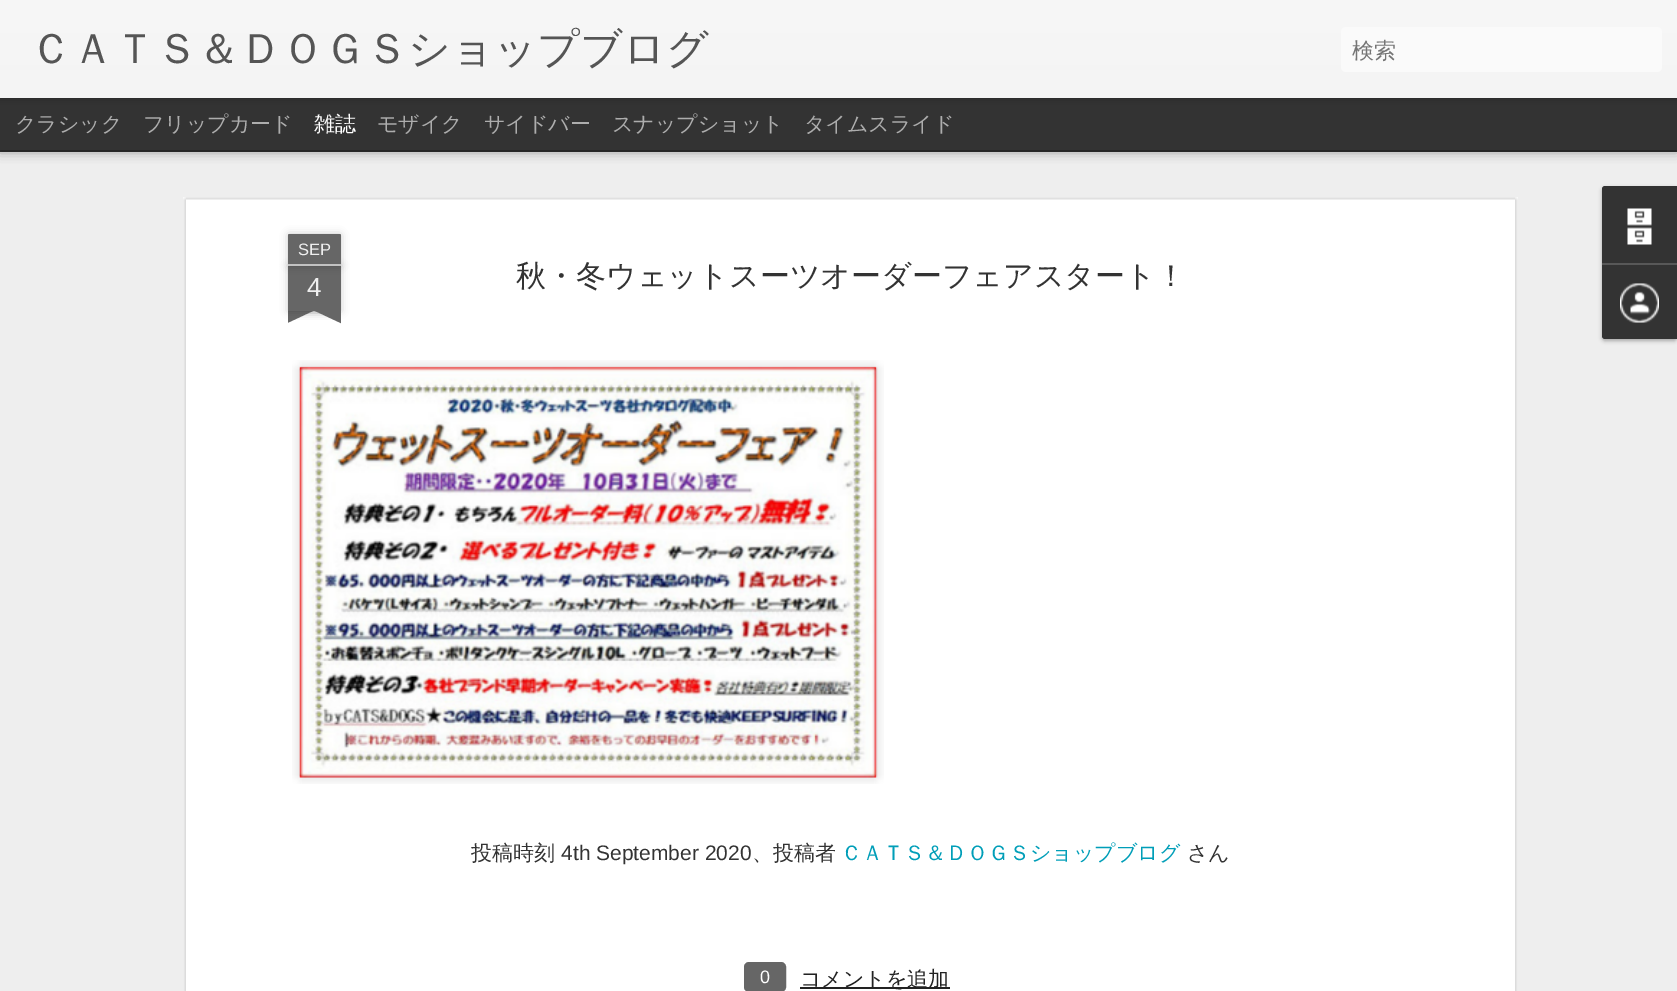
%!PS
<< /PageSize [1677 991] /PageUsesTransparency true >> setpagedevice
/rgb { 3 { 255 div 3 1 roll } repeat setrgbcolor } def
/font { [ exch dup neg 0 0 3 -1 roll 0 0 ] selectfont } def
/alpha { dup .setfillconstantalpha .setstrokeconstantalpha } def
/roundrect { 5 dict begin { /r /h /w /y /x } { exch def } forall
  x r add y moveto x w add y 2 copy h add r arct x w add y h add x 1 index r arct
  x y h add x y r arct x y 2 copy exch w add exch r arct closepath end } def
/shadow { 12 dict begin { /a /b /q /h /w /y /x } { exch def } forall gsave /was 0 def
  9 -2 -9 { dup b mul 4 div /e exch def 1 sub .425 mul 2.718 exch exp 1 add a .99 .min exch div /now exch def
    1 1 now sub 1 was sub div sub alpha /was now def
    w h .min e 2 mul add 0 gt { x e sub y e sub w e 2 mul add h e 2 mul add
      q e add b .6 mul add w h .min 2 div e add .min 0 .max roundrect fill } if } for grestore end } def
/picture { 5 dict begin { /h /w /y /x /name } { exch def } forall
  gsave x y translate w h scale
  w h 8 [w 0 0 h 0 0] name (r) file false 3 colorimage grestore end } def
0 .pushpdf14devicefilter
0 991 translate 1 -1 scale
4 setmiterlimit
51 51 51 rgb
0 0 1677 991 rectfill
238 238 238 rgb
0 152 1677 839 rectfill
0 0 0 rgb
0 98 1677 52 0 6 0.5 shadow
51 51 51 rgb
0 98 1677 52 rectfill
0 0 0 rgb
0 0 1677 98 0 4 0.3 shadow
gsave 0 0 moveto 1677 0 lineto 1677 98 lineto 0 98 lineto closepath clip newpath
<< /ShadingType 2 /ColorSpace /DeviceRGB /Coords [0 0 0 98] /Extend [true true] /Function << /FunctionType 2 /Domain [0 1] /C0 [0.969 0.969 0.969] /C1 [0.957 0.957 0.957] /N 1 >> >> shfill grestore
250 250 250 rgb
1341 27 321 45 5 roundrect fill
255 255 255 rgb
183 197 1335 794 rectfill
(img/1.rgb) 183 197 1335 794 picture
0 0 0 rgb
288 266 53 45 0 4 0.2 shadow
102 102 102 rgb
288 266 53 45 rectfill
0 0 0 rgb
288 234 53 32 1.5 4 0.2 shadow
102 102 102 rgb
289.5 234 moveto 339.5 234 lineto 340.5 234 341 234.5 341 235.5 curveto 341 266 lineto 288 266 lineto 288 235.5 lineto 288 234.5 288.5 234 289.5 234 curveto closepath fill
194 194 194 rgb
288 264 53 2 rectfill
gsave
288 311 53 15 rectclip
0 0 0 rgb
275 296 75 15 0 4 0.2 shadow
grestore
gsave
288 311 53 15 rectclip
102 102 102 rgb
275 312 moveto 343 280 lineto 349 294 lineto 281 326 lineto closepath fill
grestore
gsave
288 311 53 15 rectclip
0 0 0 rgb
279 296 75 15 0 4 0.2 shadow
grestore
gsave
288 311 53 15 rectclip
102 102 102 rgb
286 280 moveto 354 312 lineto 347 326 lineto 279 294 lineto closepath fill
grestore
(img/2.rgb) 292 360 592 424 picture
(img/3.rgb) 299 366 579 412 picture
102 102 102 rgb
745 963 40 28 4 roundrect gsave fill grestore
2 setlinewidth
stroke
34 34 34 rgb
800 987 150 2 rectfill
0 0 0 rgb
1602 188 75 153 3 2 0.3 shadow
51 51 51 rgb
1605 186 moveto 1677 186 lineto 1677 263 lineto 1602 263 lineto 1602 189 lineto 1602 187.5 1603.5 186 1605 186 curveto closepath fill
(img/4.rgb) 1627 208 25 37 picture
1602 263 moveto 1677 263 lineto 1677 339 lineto 1605 339 lineto 1603.5 339 1602 337.5 1602 336 curveto closepath fill
88 88 88 rgb
1602 263 75 2 rectfill
(img/5.rgb) 1620 283 39 40 picture
/WenQuanYiZenHei-Medium 42 font
85 85 85 rgb
30 63 moveto (ＣＡＴＳ＆ＤＯＧＳショップブログ) show
/WenQuanYiZenHei-Medium 22 font
117 117 117 rgb
1352 58 moveto (検索) show
/WenQuanYiZenHei-Medium 21 font
173 173 173 rgb
15 131 moveto (クラシック) show
143 131 moveto (フリップカード) show
255 255 255 rgb
314 131 moveto (雑誌) show
173 173 173 rgb
[
  [(モザイク) 377 131]
  [(サイドバー) 484 131]
  [(スナップショット) 612 131]
  [(タイムスライド) 804 131]
] { aload pop moveto show } forall
/LiberationSans-Regular 16.5 font
238 238 238 rgb
298 255 moveto (SEP) show
/LiberationSans-Regular 26 font
307 296 moveto (4) show
/WenQuanYiZenHei-Medium 30 font
51 51 51 rgb
516 286 moveto (秋・冬ウェットスーツオーダーフェアスタート！) show
/WenQuanYiZenHei-Medium 21 font
471 860 moveto (投稿時刻) show
/LiberationSans-Regular 21 font
561 860 moveto (4th September 2020) show
/WenQuanYiZenHei-Medium 21 font
752 860 moveto (、投稿者) show
0 158 184 rgb
841 860 moveto (ＣＡＴＳ＆ＤＯＧＳショップブログ) show
51 51 51 rgb
1187 860 moveto (さん) show
/LiberationSans-Regular 18 font
255 255 255 rgb
760 983 moveto (0) show
/WenQuanYiZenHei-Medium 21 font
34 34 34 rgb
800 986 moveto (コメントを追加) show
.poppdf14devicefilter showpage
